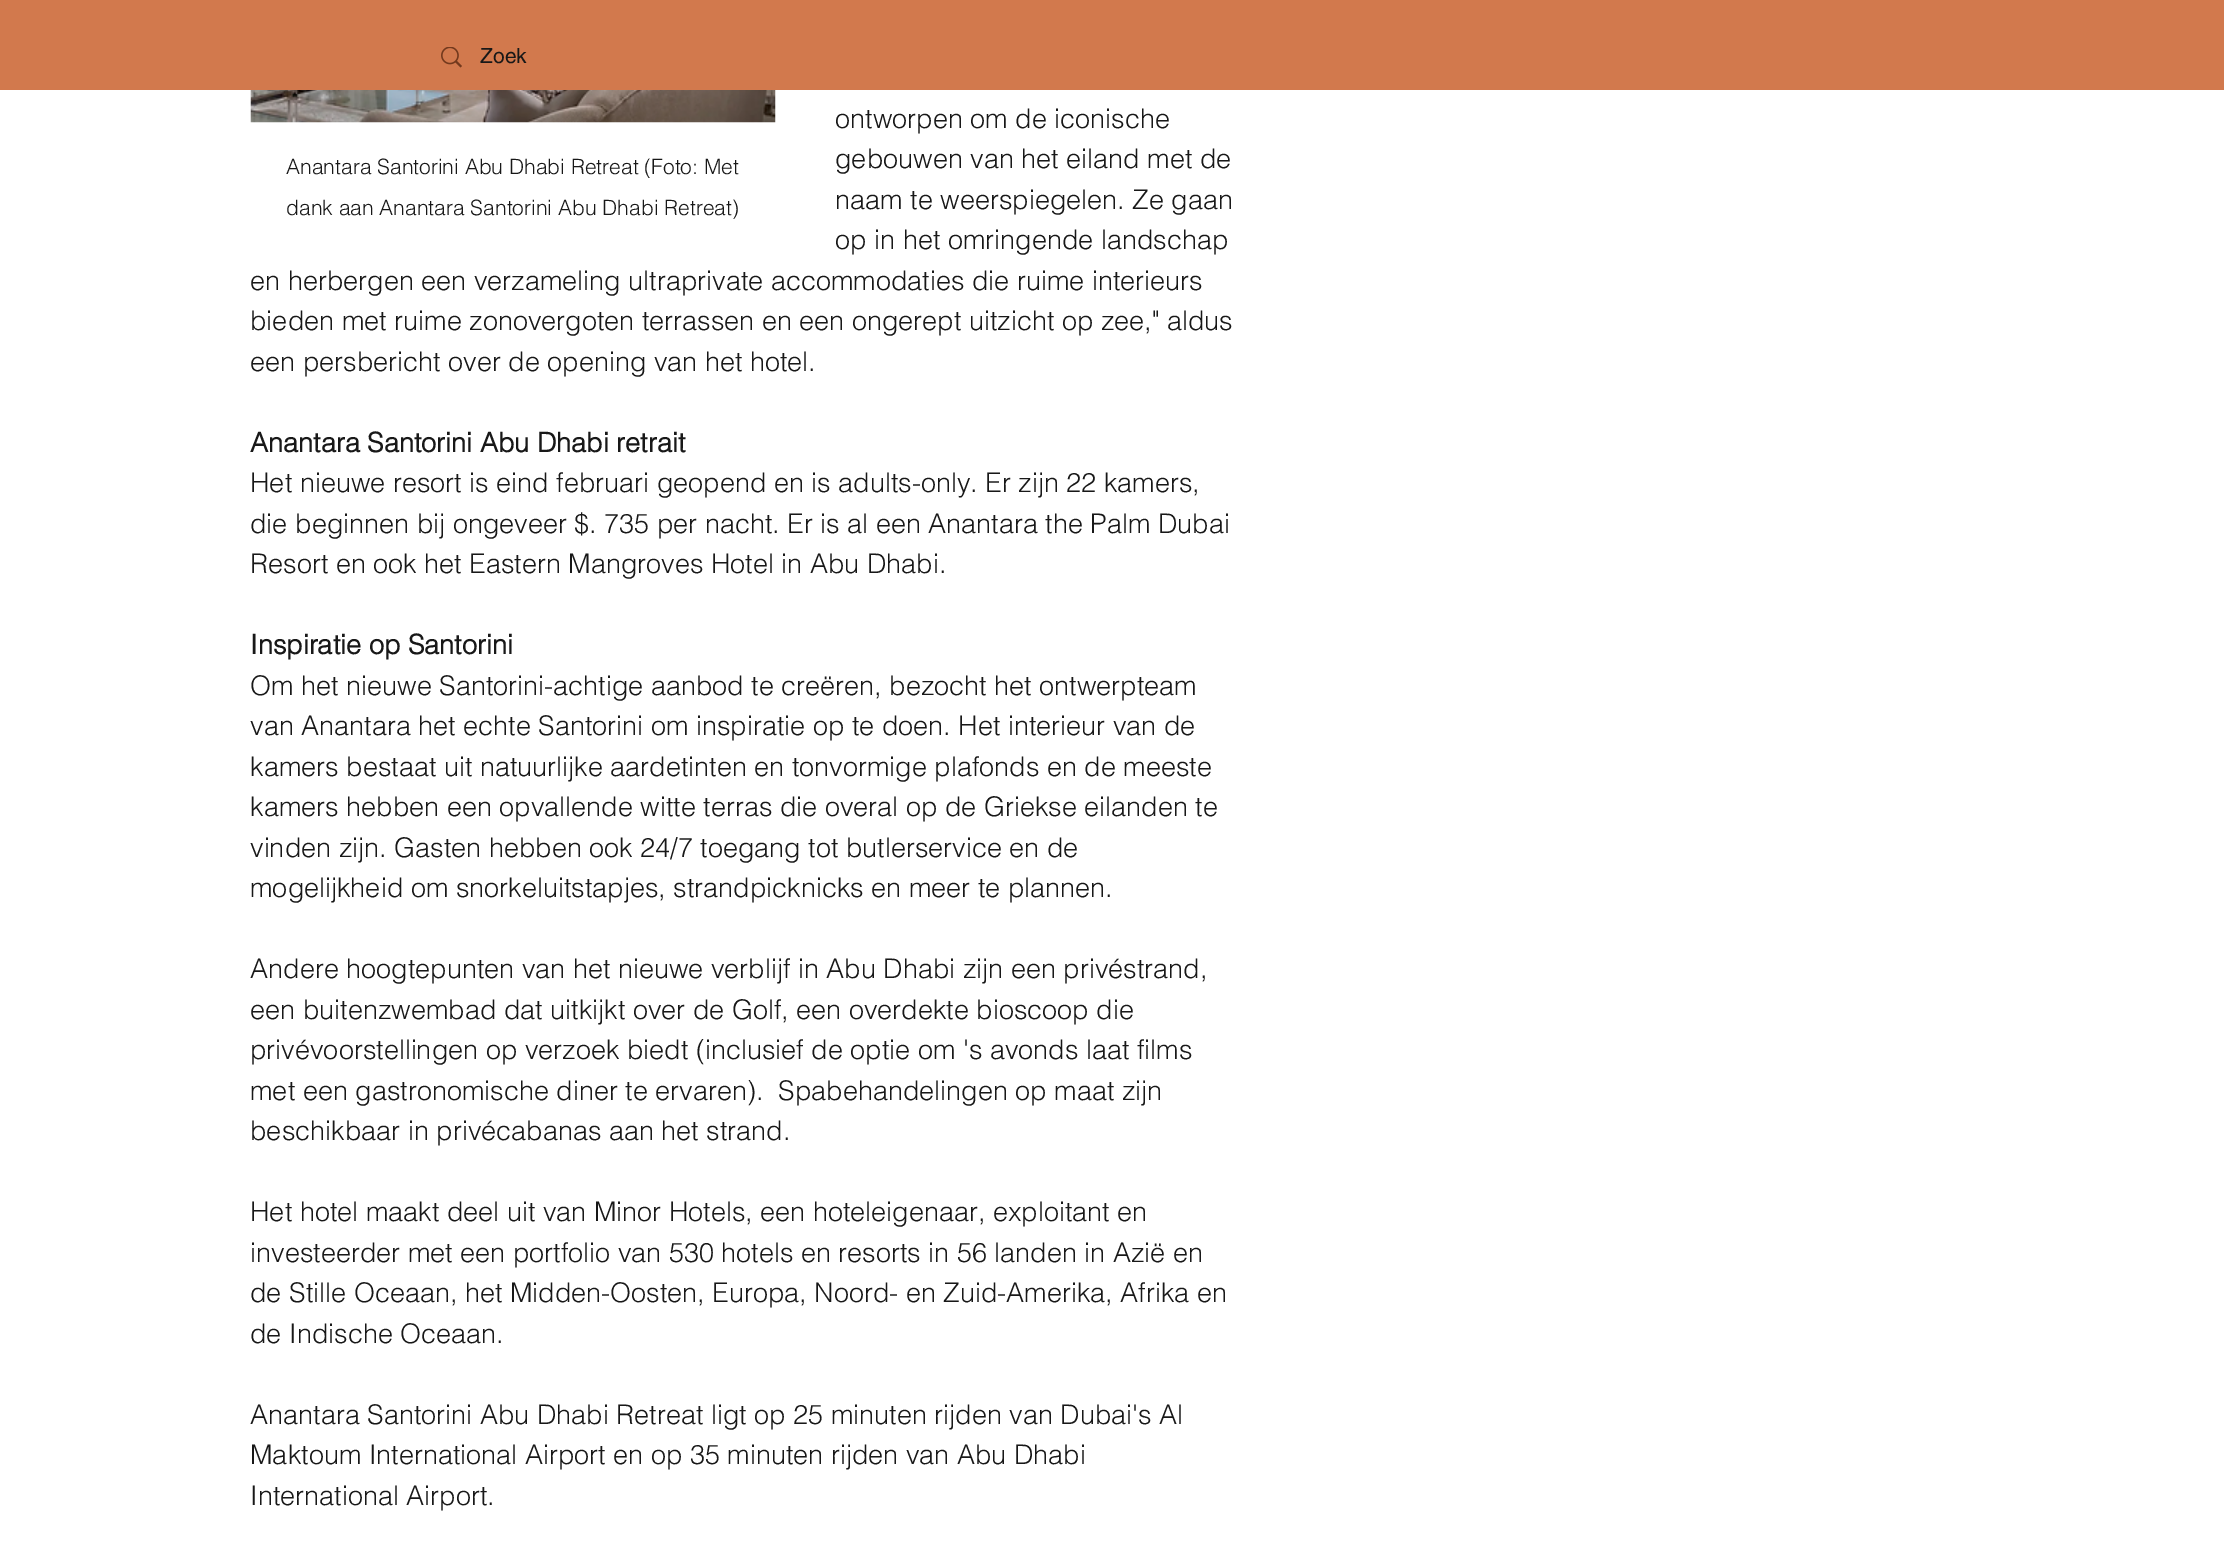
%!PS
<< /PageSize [2224 1545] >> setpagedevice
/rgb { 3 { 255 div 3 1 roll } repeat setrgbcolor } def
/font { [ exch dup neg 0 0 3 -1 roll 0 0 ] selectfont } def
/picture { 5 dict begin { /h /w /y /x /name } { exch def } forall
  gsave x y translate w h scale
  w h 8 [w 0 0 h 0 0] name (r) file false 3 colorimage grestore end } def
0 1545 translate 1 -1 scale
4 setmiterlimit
255 255 255 rgb
0 0 2224 1545 rectfill
210 121 77 rgb
0 0 2224 90 rectfill
(img/1.rgb) 441 47 21 21 picture
(img/2.rgb) 250 90 526 33 picture
/helvetica-Regular 21 font
24 24 24 rgb
480 63 moveto (Zoek) show
/helvetica-Light 27 font
[
  [(ontworpen om de iconische) 835 128]
  [(gebouwen van het eiland met de) 835 168]
  [(naam te weerspiegelen. Ze gaan) 835 209]
  [(op in het omringende landschap) 835 249]
  [(en herbergen een verzameling ultraprivate accommodaties die ruime interieurs) 250 290]
  [(bieden met ruime zonovergoten terrassen en een ongerept uitzicht op zee," aldus) 250 330]
  [(een persbericht over de opening van het hotel.) 250 371]
] { aload pop moveto show } forall
/helvetica-Light 21 font
286 174 moveto (Anantara Santorini Abu Dhabi Retreat \(Foto: Met) show
286 215 moveto (dank aan Anantara Santorini Abu Dhabi Retreat\)) show
/helvetica-Bold 27 font
250 452 moveto (Anantara Santorini Abu Dhabi retrait) show
/helvetica-Light 27 font
[
  [(Het nieuwe resort is eind februari geopend en is adults-only. Er zijn 22 kamers,) 250 492]
  [(die beginnen bij ongeveer $. 735 per nacht. Er is al een Anantara the Palm Dubai) 250 533]
  [(Resort en ook het Eastern Mangroves Hotel in Abu Dhabi.) 250 573]
] { aload pop moveto show } forall
/helvetica-Bold 27 font
250 654 moveto (Inspiratie op Santorini) show
/helvetica-Light 27 font
[
  [(Om het nieuwe Santorini-achtige aanbod te creëren, bezocht het ontwerpteam) 250 695]
  [(van Anantara het echte Santorini om inspiratie op te doen. Het interieur van de) 250 735]
  [(kamers bestaat uit natuurlijke aardetinten en tonvormige plafonds en de meeste) 250 776]
  [(kamers hebben een opvallende witte terras die overal op de Griekse eilanden te) 250 816]
  [(vinden zijn. Gasten hebben ook 24/7 toegang tot butlerservice en de) 250 857]
  [(mogelijkheid om snorkeluitstapjes, strandpicknicks en meer te plannen.) 250 897]
  [(Andere hoogtepunten van het nieuwe verblijf in Abu Dhabi zijn een privéstrand,) 250 978]
  [(een buitenzwembad dat uitkijkt over de Golf, een overdekte bioscoop die) 250 1019]
  [(privévoorstellingen op verzoek biedt \(inclusief de optie om 's avonds laat films) 250 1059]
  [(met een gastronomische diner te ervaren\).  Spabehandelingen op maat zijn) 250 1100]
  [(beschikbaar in privécabanas aan het strand.) 250 1140]
  [(Het hotel maakt deel uit van Minor Hotels, een hoteleigenaar, exploitant en) 250 1221]
  [(investeerder met een portfolio van 530 hotels en resorts in 56 landen in Azië en) 250 1262]
  [(de Stille Oceaan, het Midden-Oosten, Europa, Noord- en Zuid-Amerika, Afrika en) 250 1302]
  [(de Indische Oceaan.) 250 1343]
  [(Anantara Santorini Abu Dhabi Retreat ligt op 25 minuten rijden van Dubai's Al) 250 1424]
  [(Maktoum International Airport en op 35 minuten rijden van Abu Dhabi) 250 1464]
  [(International Airport.) 250 1505]
] { aload pop moveto show } forall
showpage
